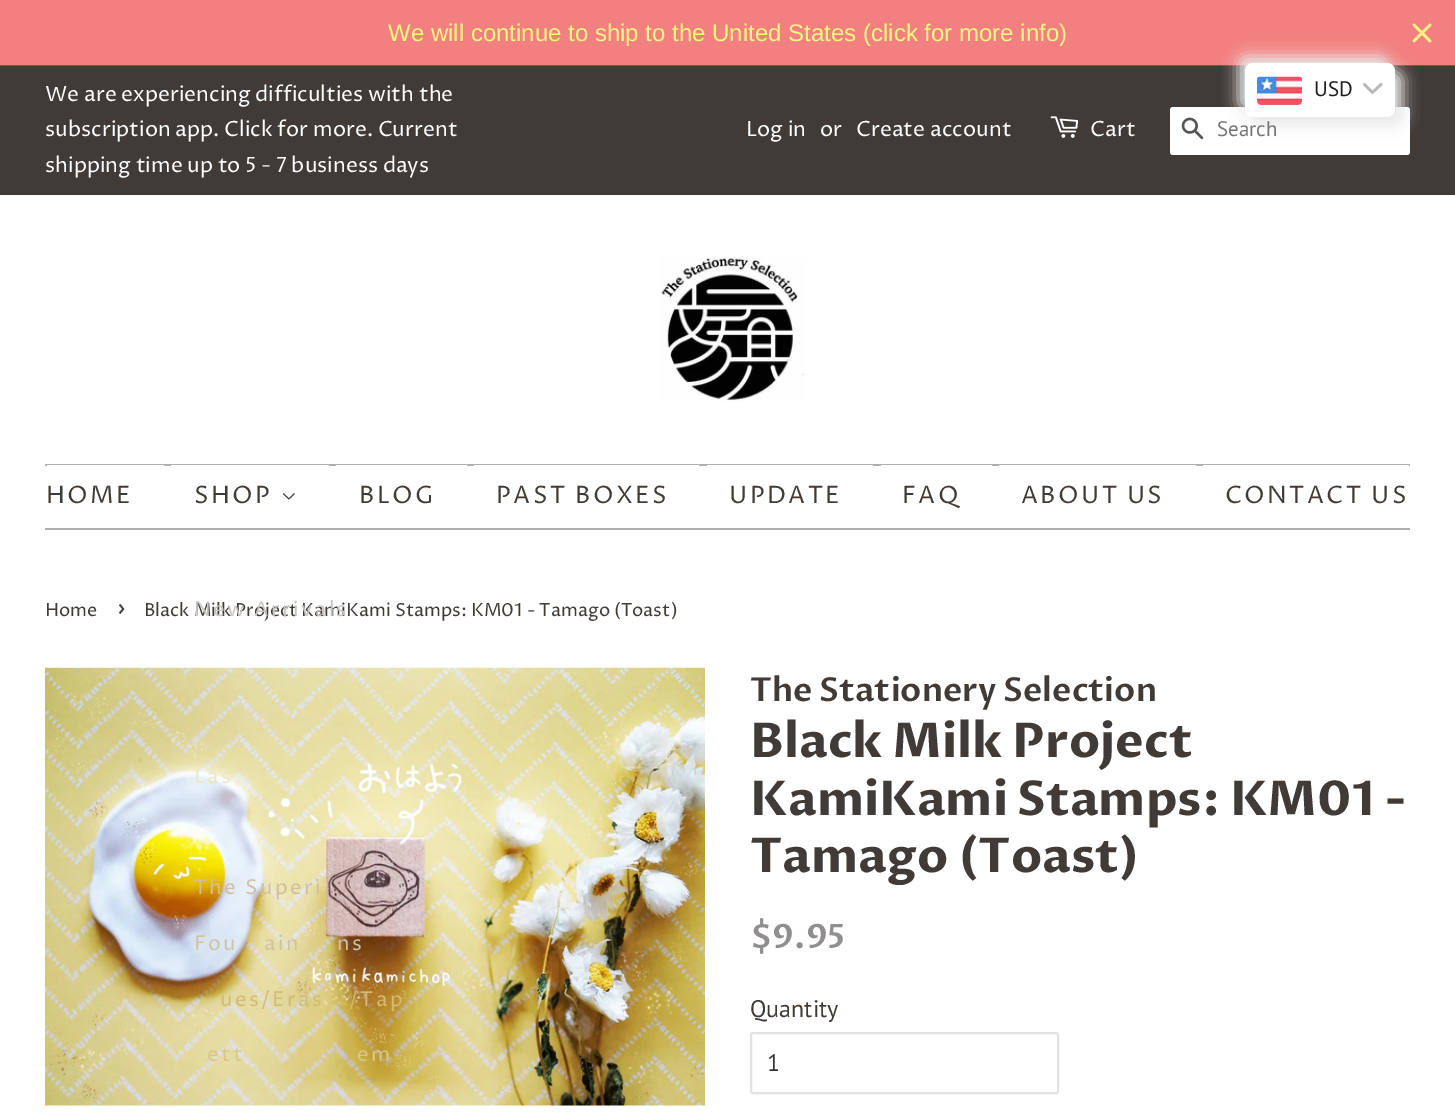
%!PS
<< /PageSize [1455 1118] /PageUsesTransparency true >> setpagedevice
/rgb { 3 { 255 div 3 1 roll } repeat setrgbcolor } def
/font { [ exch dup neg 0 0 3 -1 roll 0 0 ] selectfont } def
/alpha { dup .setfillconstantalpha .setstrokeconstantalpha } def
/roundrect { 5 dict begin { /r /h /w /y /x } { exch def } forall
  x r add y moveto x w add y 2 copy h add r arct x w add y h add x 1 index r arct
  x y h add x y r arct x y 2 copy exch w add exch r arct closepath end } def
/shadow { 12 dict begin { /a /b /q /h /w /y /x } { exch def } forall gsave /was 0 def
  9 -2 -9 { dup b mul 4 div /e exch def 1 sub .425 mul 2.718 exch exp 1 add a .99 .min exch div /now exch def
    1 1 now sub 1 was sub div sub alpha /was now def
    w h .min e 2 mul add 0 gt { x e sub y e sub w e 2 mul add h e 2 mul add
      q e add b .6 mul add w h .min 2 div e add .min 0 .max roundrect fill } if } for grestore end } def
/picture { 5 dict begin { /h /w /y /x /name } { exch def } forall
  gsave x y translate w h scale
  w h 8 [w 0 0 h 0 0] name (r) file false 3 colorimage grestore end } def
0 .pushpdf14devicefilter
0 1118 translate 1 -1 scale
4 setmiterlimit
255 255 255 rgb
0 0 1455 1118 rectfill
242 128 128 rgb
0 0 1455 65 rectfill
(img/1.rgb) 1412 23 20 20 picture
64 59 55 rgb
0 66 1455 129 rectfill
177 61 60 rgb
0 65 1455 1 rectfill
(img/2.rgb) 1050 116 29 22 picture
255 255 255 rgb
1170 107 240 48 3 roundrect fill
(img/3.rgb) 1181 117 23 23 picture
(img/4.rgb) 660 257 145 145 picture
[
  [45 464 1365 2 177 175 175]
  [45 528 1365 2 177 175 175]
  [47 465 117 1 255 255 255]
  [171 465 158 1 255 255 255]
] { aload pop rgb rectfill } forall
(img/5.rgb) 282 493 13 7 picture
[
  [336 465 131 1 255 255 255]
  [474 465 225 1 255 255 255]
  [707 465 166 1 255 255 255]
  [881 465 111 1 255 255 255]
  [999 465 197 1 255 255 255]
  [1203 465 206 1 255 255 255]
] { aload pop rgb rectfill } forall
232 232 232 rgb
1238 56 150 54 8 7.5 1 shadow
1253 71 150 54 8 7.5 1 shadow
255 255 255 rgb
1245 63 150 54 8 roundrect fill
(img/6.rgb) 1257 76 45 29 picture
183 183 183 rgb
2.7 setlinewidth
1 setlinecap
1 setlinejoin
1364.5 84.5 moveto 1372.5 92.5 lineto 1381 84.5 lineto stroke
(img/7.rgb) 45 667 660 439 picture
226 226 225 rgb
2 setlinewidth
0 setlinecap
0 setlinejoin
751 1033 307 60 2 roundrect stroke
/LiberationSans-Regular 24 font
255 246 129 rgb
388 41 moveto (We will continue to ship to the United States \(click for more info\)) show
/ProzaLibre-Regular 21 font
255 255 255 rgb
[
  [(We are experiencing difficulties with the) 45 101]
  [(subscription app. Click for more. Current) 45 136]
  [(shipping time up to 5 - 7 business days) 45 172]
  [(Log in) 746 136]
  [(or) 820 136]
  [(Create account) 856 136]
  [(Cart) 1090 136]
] { aload pop moveto show } forall
/PTSans-Regular 21 font
117 117 117 rgb
1217 136 moveto (Search) show
/ProzaLibre-Regular 24 font
64 59 55 rgb
46 503 moveto 2.4 0 (HOME) ashow
194 503 moveto 2.4 0 (SHOP) ashow
/ProzaLibre-Regular 20.5 font
235 231 196 rgb
194 783 moveto 2.4 0 (Las) ashow
208 191 158 rgb
194 894 moveto 2.4 0 (The Superi) ashow
206 196 164 rgb
194 950 moveto 2.4 0 (Fou) ashow
264 950 moveto 2.4 0 (ain) ashow
337 950 moveto 2.4 0 (ns) ashow
210 187 116 rgb
220 1006 moveto 2.4 0 (ues/Eras) ashow
349 1006 moveto 2.4 0 (/Tap) ashow
216 200 134 rgb
207 1061 moveto 2.4 0 (ett) ashow
357 1061 moveto 2.4 0 (em) ashow
/ProzaLibre-Regular 24 font
64 59 55 rgb
359 503 moveto 2.4 0 (BLOG) ashow
496 503 moveto 2.4 0 (PAST BOXES) ashow
729 503 moveto 2.4 0 (UPDATE) ashow
902 503 moveto 2.4 0 (FAQ) ashow
1021 503 moveto 2.4 0 (ABOUT US) ashow
1225 503 moveto 2.4 0 (CONTACT US) ashow
/PTSans-Regular 21 font
30 30 30 rgb
1314 96 moveto (USD) show
/ProzaLibre-Regular 18 font
64 59 55 rgb
45 616 moveto (Home) show
/ProzaLibre-Regular 25 font
117 616 moveto (›) show
/ProzaLibre-Regular 18 font
144 616 moveto (Black Milk Project KamiKami Stamps: KM01 - Tamago \(Toast\)) show
/ProzaLibre-Regular 20.5 font
198 197 195 rgb
194 616 moveto 2.4 0 (New Arrivals) ashow
/ProzaLibre-SemiBold 33 font
64 59 55 rgb
750 701 moveto (The Stationery Selection) show
/ProzaLibre-Bold 48 font
[
  [(Black Milk Project) 750 757]
  [(KamiKami Stamps: KM01 -) 750 815]
  [(Tamago \(Toast\)) 750 872]
] { aload pop moveto show } forall
/ProzaLibre-SemiBold 33.5 font
145 142 142 rgb
750 948 moveto ($9.95) show
/PTSans-Regular 24 font
64 59 55 rgb
750 1017 moveto (Quantity) show
51 51 51 rgb
767 1071 moveto (1) show
.poppdf14devicefilter showpage
